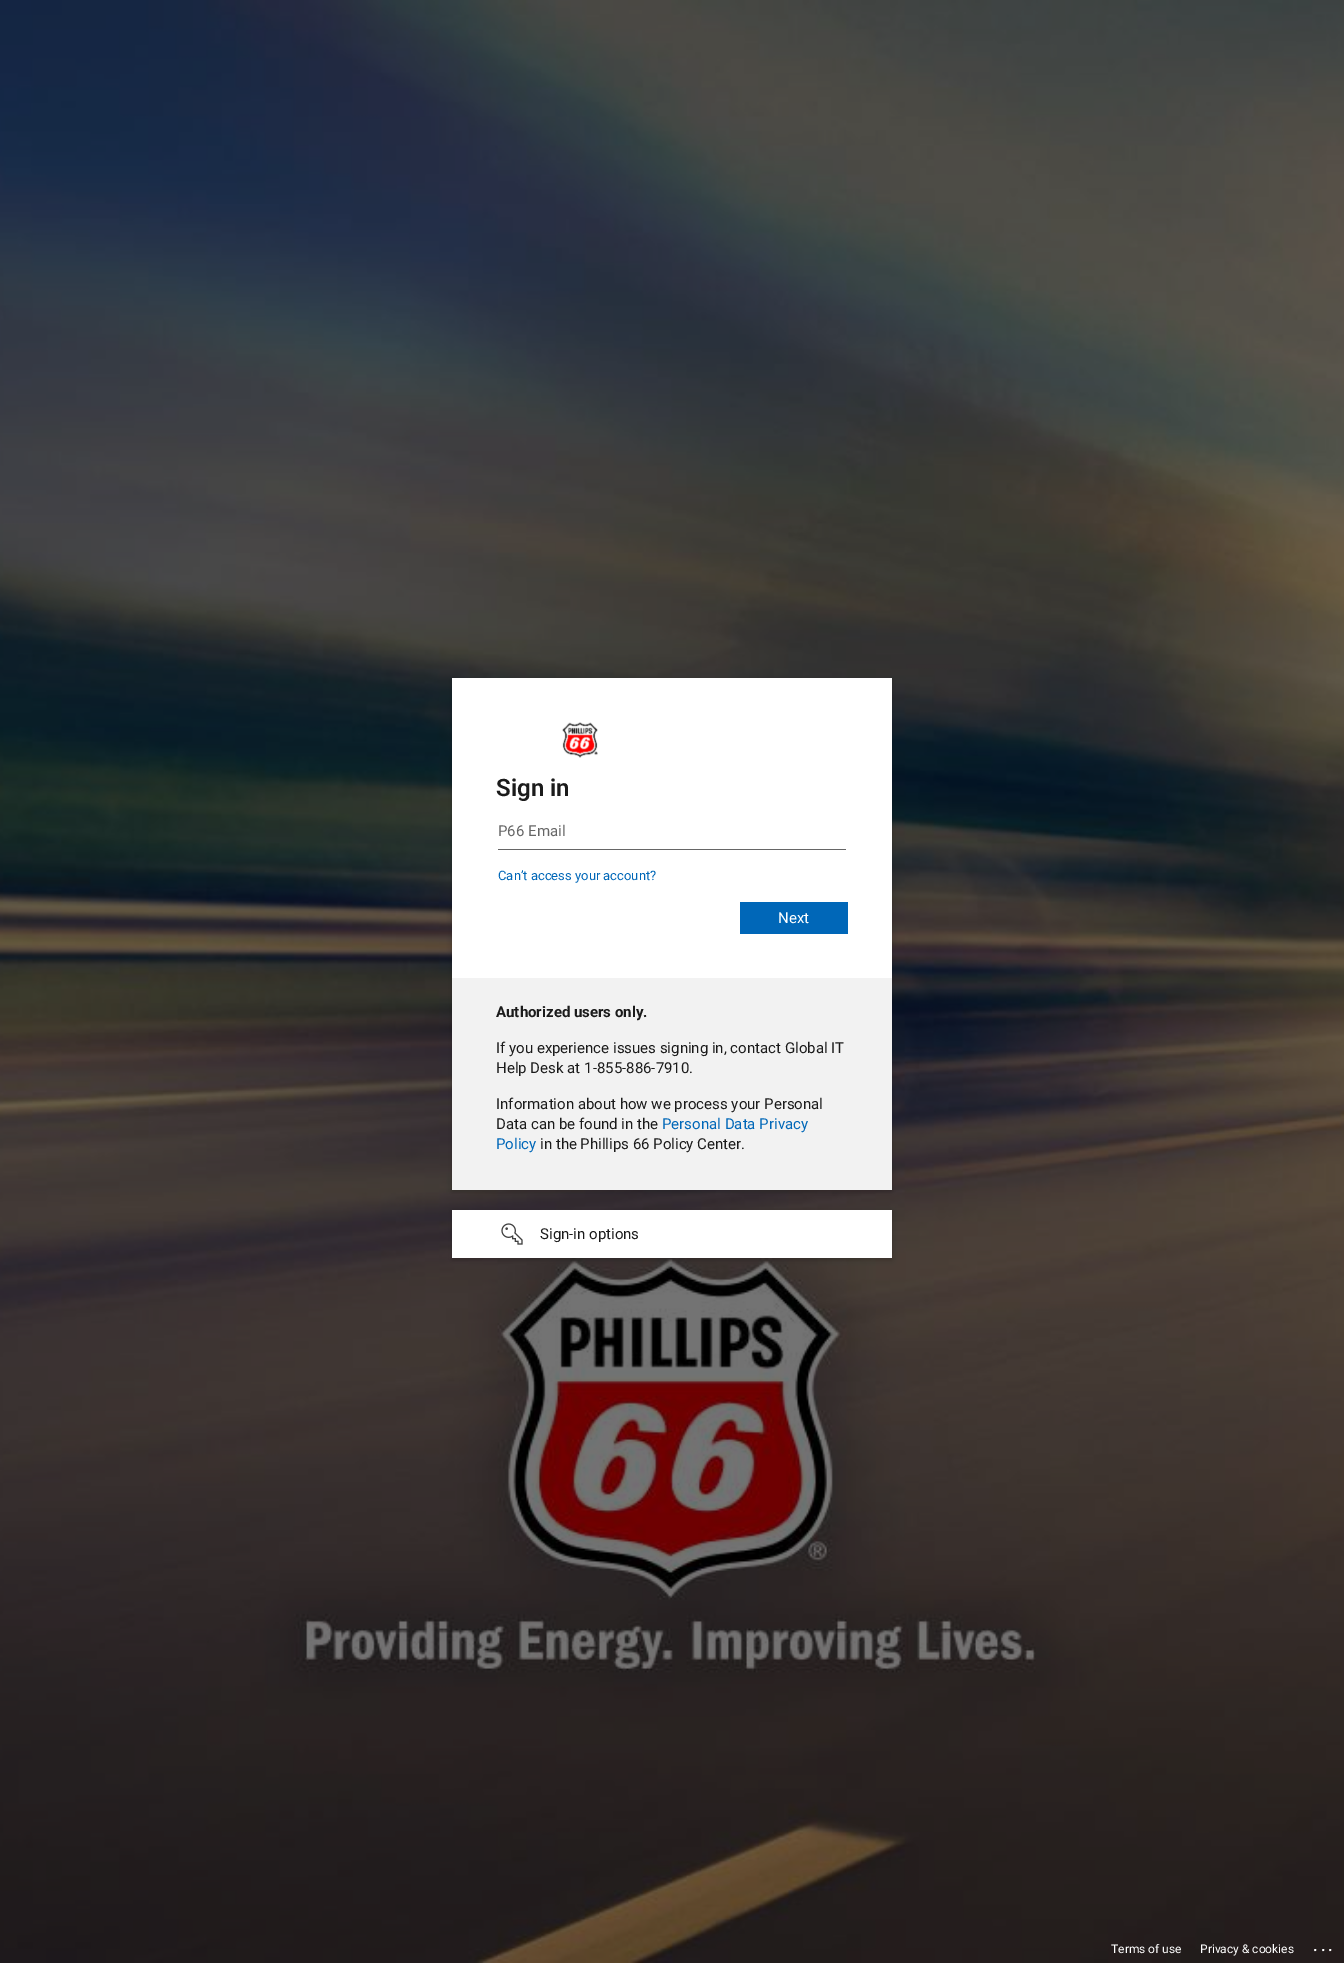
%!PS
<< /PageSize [1344 1963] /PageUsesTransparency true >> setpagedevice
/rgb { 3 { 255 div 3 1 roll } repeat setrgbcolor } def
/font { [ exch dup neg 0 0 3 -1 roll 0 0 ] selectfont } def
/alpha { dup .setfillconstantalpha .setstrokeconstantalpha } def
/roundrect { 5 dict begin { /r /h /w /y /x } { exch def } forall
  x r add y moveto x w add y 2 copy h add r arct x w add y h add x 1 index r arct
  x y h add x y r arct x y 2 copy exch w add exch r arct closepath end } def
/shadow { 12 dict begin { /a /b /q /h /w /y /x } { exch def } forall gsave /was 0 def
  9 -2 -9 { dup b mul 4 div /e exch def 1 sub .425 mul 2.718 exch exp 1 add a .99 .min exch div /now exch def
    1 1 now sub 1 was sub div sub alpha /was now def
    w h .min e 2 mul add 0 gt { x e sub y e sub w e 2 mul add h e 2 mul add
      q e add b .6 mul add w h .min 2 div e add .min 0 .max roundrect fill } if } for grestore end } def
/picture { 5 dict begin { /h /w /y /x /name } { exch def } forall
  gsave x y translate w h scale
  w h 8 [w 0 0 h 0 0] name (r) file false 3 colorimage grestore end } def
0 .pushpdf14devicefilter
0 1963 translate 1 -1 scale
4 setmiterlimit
255 255 255 rgb
0 0 1344 1963 rectfill
(img/1.rgb) 0 0 1344 1963 picture
0 0 0 rgb
452 680 440 512 0 3 0.2 shadow
255 255 255 rgb
452 678 440 300 rectfill
(img/2.rgb) 562 722 36 36 picture
[
  [498 849 348 1 102 102 102]
  [740 902 108 32 0 103 184]
  [452 978 440 212 242 242 242]
] { aload pop rgb rectfill } forall
0 0 0 rgb
452 1212 440 48 0 3 0.2 shadow
255 255 255 rgb
452 1210 440 48 rectfill
(img/3.rgb) 501 1223 22 22 picture
/Roboto-SemiBold 24 font
27 27 27 rgb
496 796 moveto (Sign in) show
/Roboto-Regular 15 font
102 102 102 rgb
498 836 moveto (P66 Email) show
/Roboto-Regular 13 font
0 103 184 rgb
498 880 moveto (Can’t access your account?) show
/Roboto-Regular 15 font
255 255 255 rgb
778 923 moveto (Next) show
/Roboto-Bold 15 font
27 27 27 rgb
496 1017 moveto (Authorized users only.) show
/Roboto-Regular 15 font
[
  [(If you experience issues signing in, contact Global IT) 496 1053]
  [(Help Desk at 1-855-886-7910.) 496 1073]
  [(Information about how we process your Personal) 496 1109]
  [(Data can be found in the) 496 1129]
] { aload pop moveto show } forall
0 103 184 rgb
662 1129 moveto (Personal Data Privacy) show
496 1149 moveto (Policy) show
27 27 27 rgb
540 1149 moveto (in the Phillips 66 Policy Center.) show
540 1239 moveto (Sign-in options) show
/Roboto-Regular 12 font
255 255 255 rgb
1111 1953 moveto (Terms of use) show
1200 1953 moveto (Privacy & cookies) show
/Roboto-SemiBold 16 font
1313 1951 moveto 3 0 (...) ashow
.poppdf14devicefilter showpage
